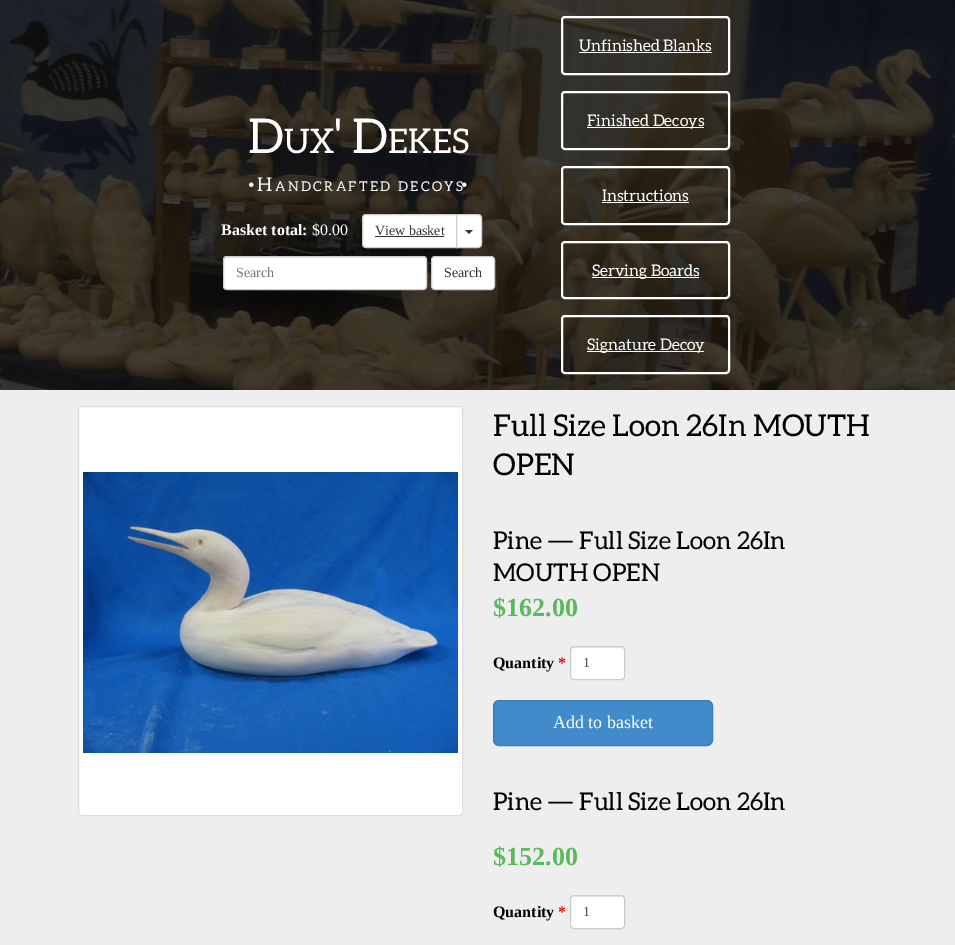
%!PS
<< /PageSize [955 945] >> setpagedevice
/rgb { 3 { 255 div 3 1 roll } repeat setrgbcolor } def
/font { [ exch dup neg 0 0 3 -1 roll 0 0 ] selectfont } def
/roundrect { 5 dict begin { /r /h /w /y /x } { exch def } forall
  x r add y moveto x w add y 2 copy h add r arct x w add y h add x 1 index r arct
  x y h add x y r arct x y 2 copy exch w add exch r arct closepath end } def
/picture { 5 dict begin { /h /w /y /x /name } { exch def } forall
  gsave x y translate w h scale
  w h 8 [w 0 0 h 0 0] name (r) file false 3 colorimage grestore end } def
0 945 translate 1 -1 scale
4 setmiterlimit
238 238 238 rgb
0 0 955 945 rectfill
(img/1.rgb) 0 0 955 390 picture
255 255 255 rgb
366 214.5 moveto 456.5 214.5 lineto 456.5 247.5 lineto 366 247.5 lineto 364 247.5 362.5 246 362.5 244 curveto 362.5 218 lineto 362.5 216 364 214.5 366 214.5 curveto closepath gsave fill grestore
204 204 204 rgb
stroke
51 51 51 rgb
375 236 69 1 rectfill
255 255 255 rgb
456.5 214.5 moveto 478 214.5 lineto 480 214.5 481.5 216 481.5 218 curveto 481.5 244 lineto 481.5 246 480 247.5 478 247.5 curveto 456.5 247.5 lineto closepath gsave fill grestore
204 204 204 rgb
stroke
51 51 51 rgb
465 230 moveto 473 230 lineto 469 234 lineto closepath fill
255 255 255 rgb
223 256 204 34 4 roundrect fill
236 236 236 rgb
227 258 moveto 423 258 lineto 425 258 426 259 426 261 curveto 426 259 425 257 423 257 curveto 227 257 lineto 225 257 224 259 224 261 curveto 224 259 225 258 227 258 curveto closepath fill
204 204 204 rgb
223.5 256.5 203 33 3.5 roundrect stroke
255 255 255 rgb
431.5 256.5 63 33 3.5 roundrect gsave fill grestore
204 204 204 rgb
stroke
255 255 255 rgb
2 setlinewidth
562 17 167 57 3 roundrect stroke
579 52 133 1 rectfill
562 92 167 57 3 roundrect stroke
587 127 117 1 rectfill
562 167 167 57 3 roundrect stroke
602 202 87 1 rectfill
562 242 167 56 3 roundrect stroke
592 277 107 1 rectfill
562 316 167 57 3 roundrect stroke
587 351 117 1 rectfill
78.5 406.5 384 409 3.5 roundrect gsave fill grestore
221 221 221 rgb
1 setlinewidth
stroke
(img/2.rgb) 83 472 375 281 picture
255 255 255 rgb
570 646 55 34 4 roundrect fill
236 236 236 rgb
574 648 moveto 621 648 lineto 623 648 624 649 624 651 curveto 624 645 618 647 613 647 curveto 582 647 lineto 577 647 571 645 571 651 curveto 571 649 572 648 574 648 curveto closepath fill
204 204 204 rgb
570.5 646.5 54 33 3.5 roundrect stroke
66 139 202 rgb
493.5 700.5 219 45 5.5 roundrect gsave fill grestore
53 126 189 rgb
stroke
255 255 255 rgb
570 895 55 34 4 roundrect fill
236 236 236 rgb
574 897 moveto 621 897 lineto 623 897 624 898 624 900 curveto 624 894 618 896 613 896 curveto 582 896 lineto 577 896 571 894 571 900 curveto 571 898 572 897 574 897 curveto closepath fill
204 204 204 rgb
570.5 895.5 54 33 3.5 roundrect stroke
/Aleo-Regular 48 font
255 255 255 rgb
248 153 moveto (D) show
/Aleo-Regular 34 font
284 153 moveto (UX) show
/Aleo-Regular 48 font
334 153 moveto (' D) show
/Aleo-Regular 34 font
388 153 moveto (EKES) show
/LiberationSerif-Regular 19 font
248 191 moveto 2.4 0 (•) ashow
/Aleo-Regular 19 font
257 191 moveto 2.4 0 (H) ashow
/Aleo-Regular 13.5 font
275 191 moveto 2.4 0 (ANDCRAFTED) ashow
398 191 moveto 2.4 0 (DECOYS) ashow
/LiberationSerif-Regular 19 font
461 191 moveto 2.4 0 (•) ashow
/LiberationSerif-Bold 16 font
221 235 moveto (Basket total:) show
/LiberationSerif-Regular 16 font
312 235 moveto ($0.00) show
/LiberationSerif-Regular 14 font
51 51 51 rgb
375 235 moveto (View basket) show
119 119 119 rgb
236 277 moveto (Search) show
51 51 51 rgb
444 277 moveto (Search) show
/Aleo-Regular 16 font
255 255 255 rgb
[
  [(Unfinished Blanks) 579 51]
  [(Finished Decoys) 587 126]
  [(Instructions) 602 201]
  [(Serving Boards) 592 276]
  [(Signature Decoy) 587 350]
] { aload pop moveto show } forall
/Aleo-Regular 30.1 font
0 0 0 rgb
493 436 moveto (Full Size Loon 26In MOUTH) show
493 475 moveto (OPEN) show
/Aleo-Regular 24.5 font
493 549 moveto (Pine — Full Size Loon 26In) show
493 581 moveto (MOUTH OPEN) show
/LiberationSerif-Bold 26 font
92 184 92 rgb
493 616 moveto ($162.00) show
/LiberationSerif-Bold 16 font
0 0 0 rgb
493 668 moveto (Quantity) show
255 0 0 rgb
558 668 moveto (*) show
/LiberationSerif-Regular 14 font
85 85 85 rgb
583 667 moveto (1) show
/LiberationSerif-Regular 18 font
255 255 255 rgb
553 728 moveto (Add to basket) show
/Aleo-Regular 24.5 font
0 0 0 rgb
493 810 moveto (Pine — Full Size Loon 26In) show
/LiberationSerif-Bold 26 font
92 184 92 rgb
493 865 moveto ($152.00) show
/LiberationSerif-Bold 16 font
0 0 0 rgb
493 917 moveto (Quantity) show
255 0 0 rgb
558 917 moveto (*) show
/LiberationSerif-Regular 14 font
85 85 85 rgb
583 916 moveto (1) show
showpage
